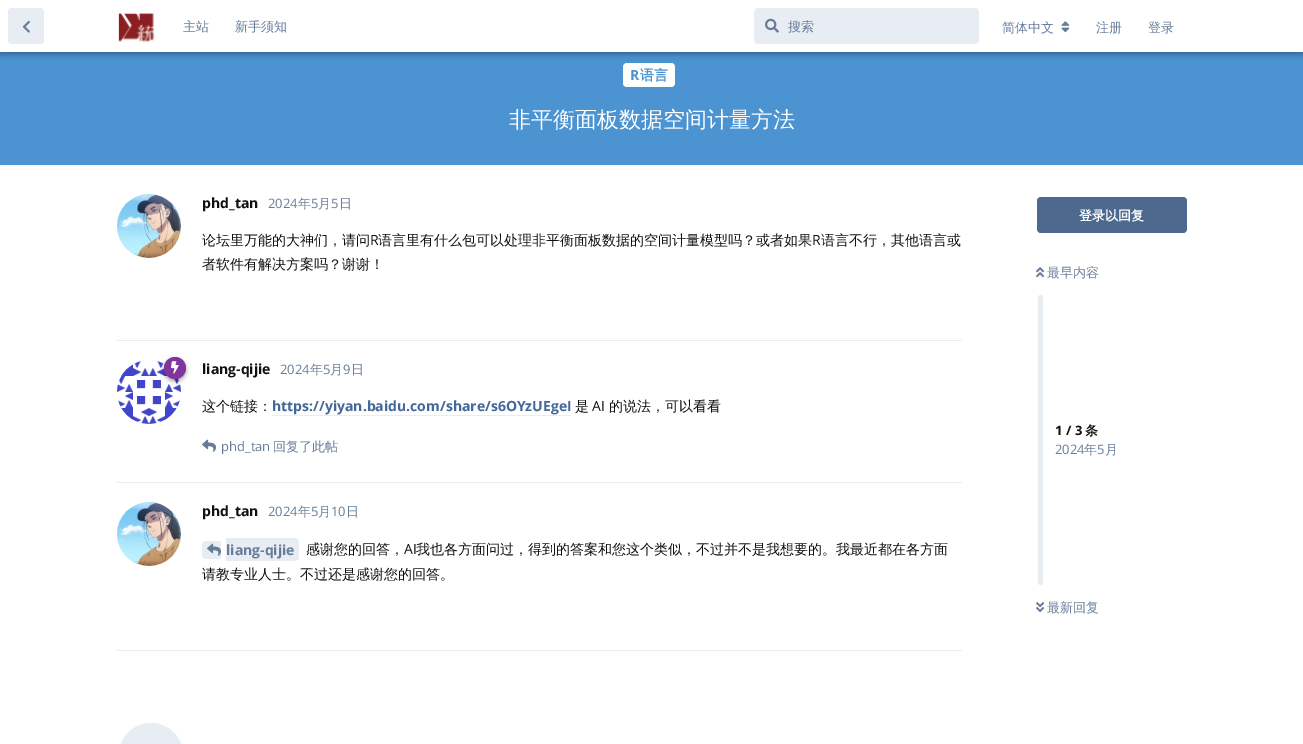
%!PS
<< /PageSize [1303 744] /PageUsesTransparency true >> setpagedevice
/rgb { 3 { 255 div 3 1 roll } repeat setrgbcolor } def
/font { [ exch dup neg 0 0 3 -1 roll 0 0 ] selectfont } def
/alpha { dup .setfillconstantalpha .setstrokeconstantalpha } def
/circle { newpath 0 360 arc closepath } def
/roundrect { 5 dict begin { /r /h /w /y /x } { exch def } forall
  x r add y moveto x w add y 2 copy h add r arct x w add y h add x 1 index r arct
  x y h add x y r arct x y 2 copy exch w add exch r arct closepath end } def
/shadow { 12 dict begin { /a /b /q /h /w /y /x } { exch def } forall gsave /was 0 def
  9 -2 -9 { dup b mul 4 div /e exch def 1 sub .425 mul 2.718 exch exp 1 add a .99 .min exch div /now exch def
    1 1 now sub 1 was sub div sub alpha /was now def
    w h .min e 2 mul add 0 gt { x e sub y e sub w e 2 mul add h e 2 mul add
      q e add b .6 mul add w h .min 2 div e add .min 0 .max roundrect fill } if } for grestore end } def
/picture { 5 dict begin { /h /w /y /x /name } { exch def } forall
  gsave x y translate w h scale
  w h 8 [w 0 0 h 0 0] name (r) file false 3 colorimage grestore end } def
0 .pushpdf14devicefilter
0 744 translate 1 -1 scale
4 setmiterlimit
255 255 255 rgb
0 0 1303 744 rectfill
75 147 209 rgb
0 52 1303 113 rectfill
255 255 255 rgb
623 63 52 24 4 roundrect fill
0 0 0 rgb
0 2 1303 52 0 3 0.35 shadow
255 255 255 rgb
0 0 1303 52 rectfill
232 236 243 rgb
8 8 36 36 4 roundrect fill
(img/1.rgb) 22 20 8 13 picture
(img/2.rgb) 118 13 37 29 picture
754 8 225 36 4 roundrect fill
(img/3.rgb) 765 18 14 15 picture
(img/4.rgb) 1061 21 9 12 picture
117 340 845 1 rectfill
149 226 32 circle fill
(img/5.rgb) 117 194 64 64 picture
117 482 845 1 rectfill
149 392 32 circle fill
(img/7.rgb) 117 360 64 64 picture
0 0 0 rgb
164 359 22 22 11 2 0.35 shadow
128 52 158 rgb
175 368 11 circle fill
(img/6.rgb) 171 361 8 13 picture
232 236 243 rgb
272 415 299 1 rectfill
(img/8.rgb) 202 439 14 13 picture
117 650 845 1 rectfill
149 534 32 circle fill
(img/9.rgb) 117 502 64 64 picture
206 541 moveto 221 541 lineto 221 559 lineto 206 559 lineto 204 559 202 557 202 555 curveto 202 545 lineto 202 543 204 541 206 541 curveto closepath fill
226 538 moveto 295 538 lineto 297 538 299 540 299 542 curveto 299 557 lineto 299 559 297 561 295 561 curveto 226 561 lineto closepath fill
(img/10.rgb) 207 543 14 13 picture
119 723 64 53 32 roundrect fill
77 105 142 rgb
1037 197 150 36 4 roundrect fill
(img/11.rgb) 1036 267 9 11 picture
232 236 243 rgb
1038 295 5 290 2.5 roundrect fill
(img/12.rgb) 1036 602 9 11 picture
/WenQuanYiZenHei-Medium 13 font
102 124 153 rgb
[
  [(主站) 183 31]
  [(新手须知) 235 31]
  [(搜索) 788 31]
  [(简体中文) 1002 32]
  [(注册) 1096 32]
  [(登录) 1148 32]
] { aload pop moveto show } forall
/OpenSans-Bold 14 font
75 147 209 rgb
630 80 moveto (R) show
/WenQuanYiZenHei-Bold 14 font
640 80 moveto (语言) show
/WenQuanYiZenHei-Medium 22 font
255 255 255 rgb
509 127 moveto (非平衡面板数据空间计量方法) show
/OpenSans-Bold 14 font
17 17 17 rgb
202 208 moveto (phd_tan) show
/OpenSans-Regular 13 font
102 124 153 rgb
268 208 moveto (2024) show
/WenQuanYiZenHei-Medium 13 font
298 208 moveto (年) show
/OpenSans-Regular 13 font
311 208 moveto (5) show
/WenQuanYiZenHei-Medium 13 font
318 208 moveto (月) show
/OpenSans-Regular 13 font
331 208 moveto (5) show
/WenQuanYiZenHei-Medium 13 font
339 208 moveto (日) show
/WenQuanYiZenHei-Medium 14 font
17 17 17 rgb
202 245 moveto (论坛里万能的大神们，请问) show
/OpenSans-Regular 14 font
370 245 moveto (R) show
/WenQuanYiZenHei-Medium 14 font
378 245 moveto (语言里有什么包可以处理非平衡面板数据的空间计量模型吗？或者如果) show
/OpenSans-Regular 14 font
812 245 moveto (R) show
/WenQuanYiZenHei-Medium 14 font
821 245 moveto (语言不行，其他语言或) show
202 269 moveto (者软件有解决方案吗？谢谢！) show
/OpenSans-Bold 14 font
202 374 moveto (liang-qijie) show
/OpenSans-Regular 13 font
102 124 153 rgb
280 374 moveto (2024) show
/WenQuanYiZenHei-Medium 13 font
310 374 moveto (年) show
/OpenSans-Regular 13 font
323 374 moveto (5) show
/WenQuanYiZenHei-Medium 13 font
330 374 moveto (月) show
/OpenSans-Regular 13 font
343 374 moveto (9) show
/WenQuanYiZenHei-Medium 13 font
351 374 moveto (日) show
/WenQuanYiZenHei-Medium 14 font
17 17 17 rgb
202 411 moveto (这个链接：) show
/OpenSans-Bold 14 font
66 103 153 rgb
272 411 moveto (https://yiyan.baidu.com/share/s6OYzUEgeI) show
/WenQuanYiZenHei-Medium 14 font
17 17 17 rgb
575 411 moveto (是) show
/OpenSans-Regular 14 font
592 411 moveto (AI) show
/WenQuanYiZenHei-Medium 14 font
609 411 moveto (的说法，可以看看) show
/OpenSans-Regular 13 font
102 124 153 rgb
221 451 moveto (phd_tan) show
/WenQuanYiZenHei-Medium 13 font
273 451 moveto (回复了此帖) show
/OpenSans-Bold 14 font
17 17 17 rgb
202 516 moveto (phd_tan) show
/OpenSans-Regular 13 font
102 124 153 rgb
268 516 moveto (2024) show
/WenQuanYiZenHei-Medium 13 font
298 516 moveto (年) show
/OpenSans-Regular 13 font
311 516 moveto (5) show
/WenQuanYiZenHei-Medium 13 font
318 516 moveto (月) show
/OpenSans-Regular 13 font
331 516 moveto (10) show
/WenQuanYiZenHei-Medium 13 font
346 516 moveto (日) show
/OpenSans-Bold 14 font
226 555 moveto (liang-qijie) show
/WenQuanYiZenHei-Medium 14 font
17 17 17 rgb
306 554 moveto (感谢您的回答，) show
/OpenSans-Regular 14 font
404 554 moveto (AI) show
/WenQuanYiZenHei-Medium 14 font
416 554 moveto (我也各方面问过，得到的答案和您这个类似，不过并不是我想要的。我最近都在各方面) show
202 579 moveto (请教专业人士。不过还是感谢您的回答。) show
/WenQuanYiZenHei-Bold 13 font
255 255 255 rgb
1079 220 moveto (登录以回复) show
/WenQuanYiZenHei-Medium 13 font
102 124 153 rgb
1047 277 moveto (最早内容) show
/OpenSans-Bold 13 font
17 17 17 rgb
1055 435 moveto (1 / 3) show
/WenQuanYiZenHei-Bold 13 font
1085 435 moveto (条) show
/OpenSans-Regular 13 font
102 124 153 rgb
1055 454 moveto (2024) show
/WenQuanYiZenHei-Medium 13 font
1084 454 moveto (年) show
/OpenSans-Regular 13 font
1097 454 moveto (5) show
/WenQuanYiZenHei-Medium 13 font
1105 454 moveto (月) show
1047 612 moveto (最新回复) show
.poppdf14devicefilter showpage
